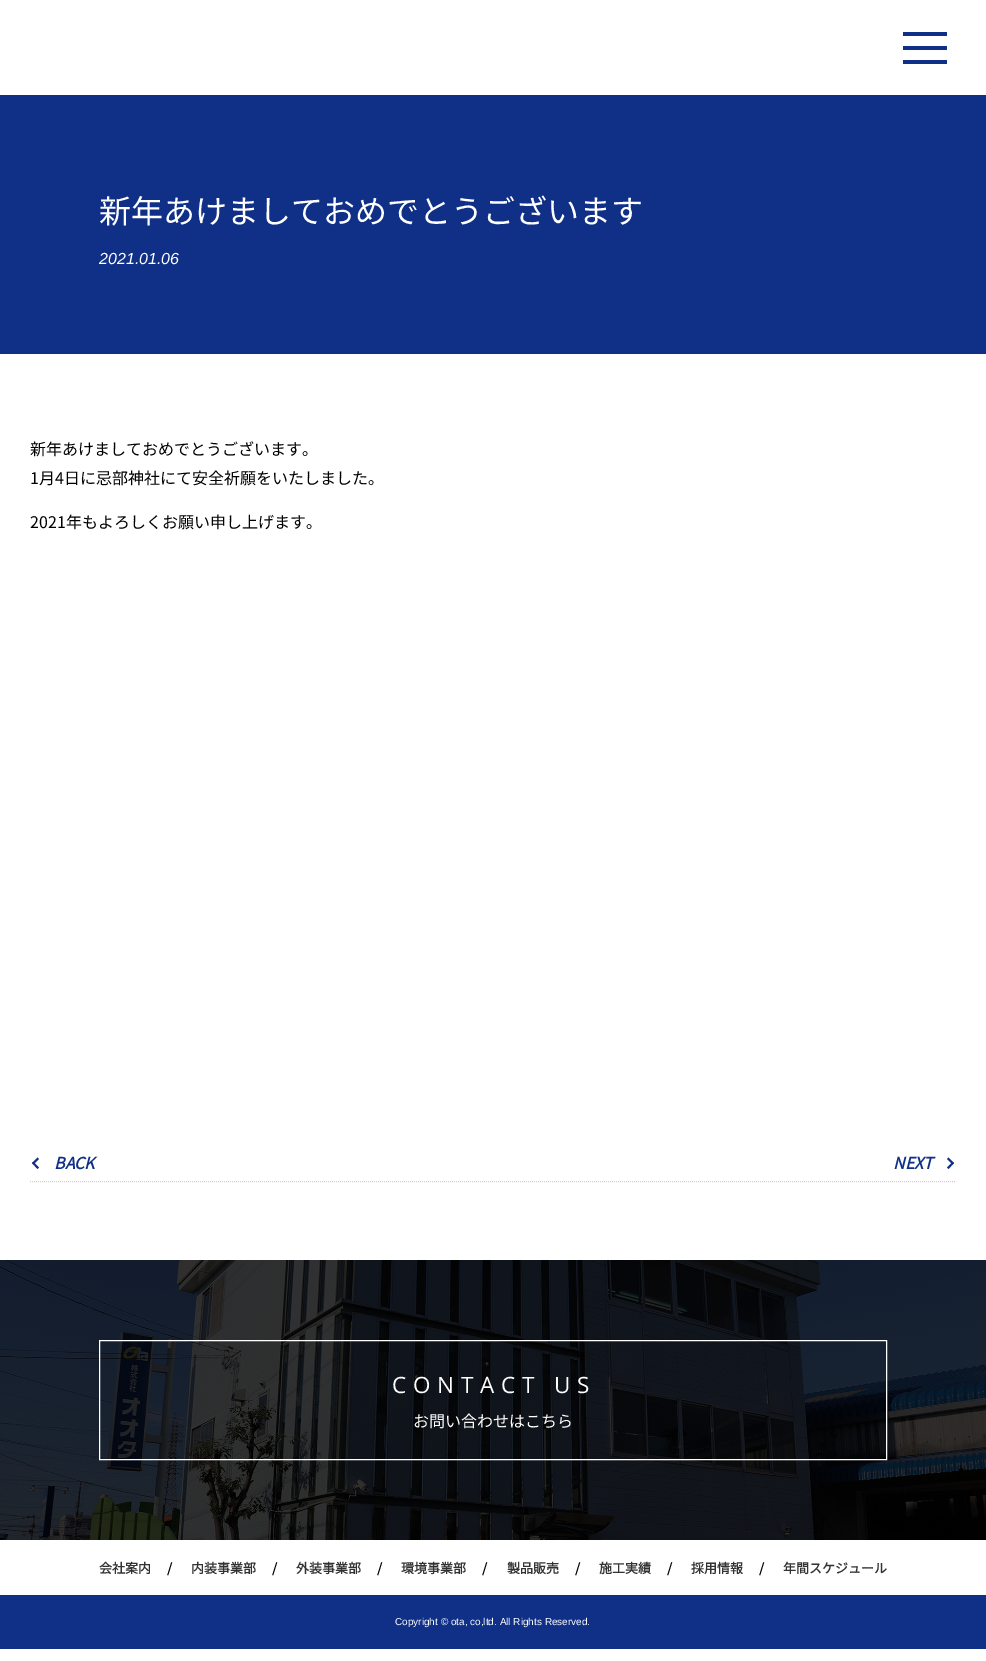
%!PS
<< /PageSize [986 1661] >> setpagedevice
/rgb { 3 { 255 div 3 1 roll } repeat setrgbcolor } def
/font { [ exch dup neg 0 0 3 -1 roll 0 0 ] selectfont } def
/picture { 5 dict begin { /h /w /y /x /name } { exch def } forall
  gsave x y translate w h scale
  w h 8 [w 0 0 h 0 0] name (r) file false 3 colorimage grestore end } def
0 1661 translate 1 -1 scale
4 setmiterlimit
255 255 255 rgb
0 0 986 1661 rectfill
[
  [903 32 44 4 16 48 135]
  [903 46 44 4 16 48 135]
  [903 60 44 4 16 48 135]
  [0 95 986 259 16 48 135]
] { aload pop rgb rectfill } forall
204 204 204 rgb
[1 1] 0 setdash
30 1181.5 moveto 956 1181.5 lineto stroke
16 48 135 rgb
32 1163 moveto 37.5 1157.5 lineto 39 1159 lineto 33.5 1164.5 lineto closepath fill
32 1163 moveto 33.5 1162 lineto 39 1167.5 lineto 37.5 1169 lineto closepath fill
948.5 1157.5 moveto 954 1163 lineto 952.5 1164.5 lineto 947 1159 lineto closepath fill
952.5 1162 moveto 954 1163 lineto 948.5 1169 lineto 947 1167.5 lineto closepath fill
(img/1.rgb) 0 1260 986 280 picture
255 255 255 rgb
[] 0 setdash
99.5 1340.5 787 119 rectstroke
16 48 135 rgb
0 1595 986 54 rectfill
/NotoSansJP-Thin 32 font
255 255 255 rgb
99 223 moveto (新年あけましておめでとうございます) show
/LiberationSans-Italic 16 font
99 264 moveto (2021.01.06) show
/NotoSansJP-Thin 16 font
0 0 0 rgb
[
  [(新年あけましておめでとうございます。) 30 455]
  [(1月4日に忌部神社にて安全祈願をいたしました。) 30 484]
  [(2021年もよろしくお願い申し上げます。) 30 528]
] { aload pop moveto show } forall
/NotoSansJP-BoldItalic 16 font
16 48 135 rgb
54 1169 moveto (BACK) show
893 1169 moveto (NEXT) show
/OpenSans-Regular 22.5 font
255 255 255 rgb
392 1393 moveto 6.75 0 (CONTACT US) ashow
/NotoSansJP-Thin 16 font
413 1427 moveto (お問い合わせはこちら) show
/NotoSansJP-Bold 13 font
51 51 51 rgb
99 1573 moveto (会社案内) show
0 0 0 rgb
167 1573 moveto (/) show
51 51 51 rgb
191 1573 moveto (内装事業部) show
0 0 0 rgb
272 1573 moveto (/) show
51 51 51 rgb
296 1573 moveto (外装事業部) show
0 0 0 rgb
377 1573 moveto (/) show
51 51 51 rgb
401 1573 moveto (環境事業部) show
0 0 0 rgb
482 1573 moveto (/) show
51 51 51 rgb
507 1573 moveto (製品販売) show
0 0 0 rgb
575 1573 moveto (/) show
51 51 51 rgb
599 1573 moveto (施工実績) show
0 0 0 rgb
667 1573 moveto (/) show
51 51 51 rgb
691 1573 moveto (採用情報) show
0 0 0 rgb
759 1573 moveto (/) show
51 51 51 rgb
783 1573 moveto (年間スケジュール) show
/LiberationSans-Regular 10 font
255 255 255 rgb
395 1625 moveto (Copyright © ota, co,ltd. All Rights Reserved.) show
showpage
